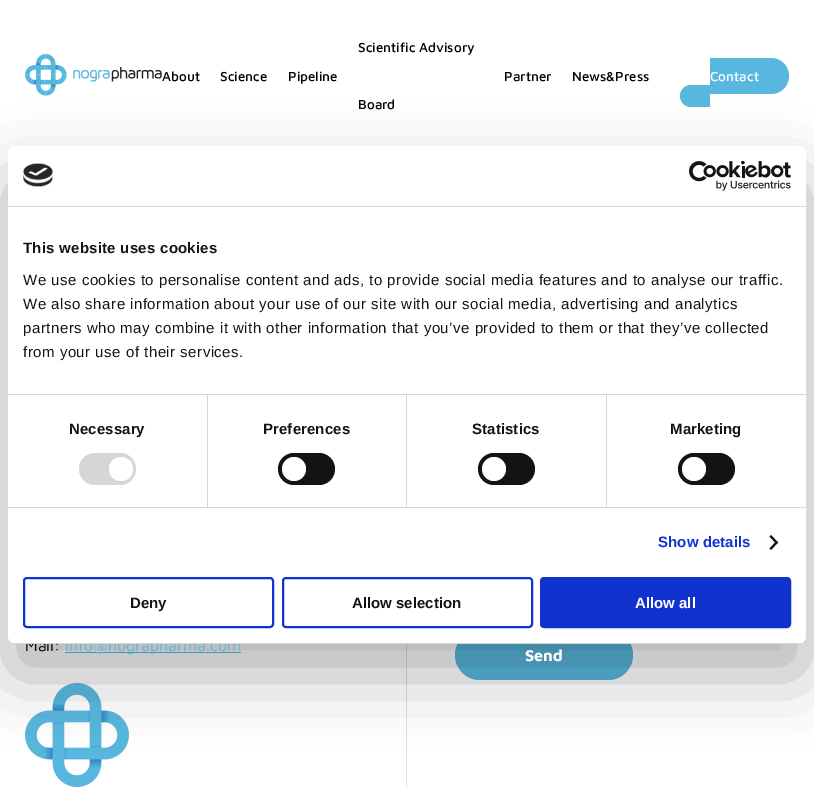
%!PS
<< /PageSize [814 789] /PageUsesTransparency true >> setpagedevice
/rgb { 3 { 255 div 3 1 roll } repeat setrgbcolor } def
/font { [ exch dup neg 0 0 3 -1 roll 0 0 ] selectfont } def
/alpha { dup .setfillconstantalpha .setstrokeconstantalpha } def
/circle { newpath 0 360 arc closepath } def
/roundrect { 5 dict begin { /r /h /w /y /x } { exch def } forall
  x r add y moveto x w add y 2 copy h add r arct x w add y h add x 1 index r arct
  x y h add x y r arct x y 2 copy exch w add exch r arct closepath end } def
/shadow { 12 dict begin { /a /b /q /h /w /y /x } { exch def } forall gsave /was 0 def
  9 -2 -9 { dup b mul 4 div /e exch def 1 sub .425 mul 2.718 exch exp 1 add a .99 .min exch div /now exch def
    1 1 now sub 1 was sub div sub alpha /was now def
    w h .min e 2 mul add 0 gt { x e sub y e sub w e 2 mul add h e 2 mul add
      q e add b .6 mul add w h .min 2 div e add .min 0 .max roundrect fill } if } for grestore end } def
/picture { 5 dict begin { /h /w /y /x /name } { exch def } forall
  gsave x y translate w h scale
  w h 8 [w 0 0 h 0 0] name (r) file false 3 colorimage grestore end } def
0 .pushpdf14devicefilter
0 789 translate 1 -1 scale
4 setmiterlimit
255 255 255 rgb
0 0 814 789 rectfill
(img/1.rgb) 25 54 137 42 picture
88 183 222 rgb
691 85 moveto 710 85 lineto 710 107 lineto 691 107 lineto 685 107 680 102 680 96 curveto 680 90 685 85 691 85 curveto closepath fill
710 58 moveto 771 58 lineto 781 58 789 66 789 76 curveto 789 86 781 94 771 94 curveto 710 94 lineto closepath fill
222 222 222 rgb
406 644 1 143 rectfill
88 183 222 rgb
65 652 176 1 rectfill
(img/4.rgb) 25 683 104 104 picture
455 630 178 50 25 roundrect fill
0 0 0 rgb
8 178 798 498 8 34 0.3 shadow
/MavenPro-Medium 13.5 font
[
  [(About) 162 81]
  [(Science) 220 81]
  [(Pipeline) 288 81]
  [(Scientific Advisory) 358 52]
  [(Board) 358 109]
  [(Partner) 504 81]
  [(News&Press) 572 81]
] { aload pop moveto show } forall
255 255 255 rgb
710 81 moveto (Contact) show
/MavenPro-Regular 16 font
0 0 0 rgb
25 651 moveto (Mail:) show
88 183 222 rgb
65 651 moveto (info@nographarma.com) show
255 255 255 rgb
8 146 798 498 8 roundrect fill
16 50 207 rgb
541 578 249 49 3 roundrect gsave fill grestore
2 setlinewidth
stroke
/LiberationSans-Bold 15 font
255 255 255 rgb
635 608 moveto (Allow all) show
16 50 207 rgb
283 578 249 49 3 roundrect stroke
20 20 20 rgb
352 608 moveto (Allow selection) show
16 50 207 rgb
24 578 249 49 3 roundrect stroke
20 20 20 rgb
130 608 moveto (Deny) show
gsave
8 146 798 498 8 roundrect clip newpath
214 214 214 rgb
8 643 798 1 rectfill
grestore
771 535 moveto 778 542.5 lineto 776.5 544 lineto 769.5 536.5 lineto closepath fill
776.5 541 moveto 778 542.5 lineto 771 550 lineto 769.5 548.5 lineto closepath fill
678 453 57 32 16 roundrect fill
255 255 255 rgb
694 469 12 circle fill
20 20 20 rgb
478 453 57 32 16 roundrect fill
255 255 255 rgb
494 469 12 circle fill
20 20 20 rgb
278 453 57 32 16 roundrect fill
255 255 255 rgb
294 469 12 circle fill
214 214 214 rgb
79 453 57 32 16 roundrect fill
255 255 255 rgb
121 469 12 circle fill
/LiberationSans-Regular 15 font
20 20 20 rgb
23 357 moveto 0.5 0 (from your use of their services.) ashow
23 333 moveto 0.5 0 (partners who may combine it with other information that you’ve provided to them or that they’ve collected) ashow
23 309 moveto 0.5 0 (We also share information about your use of our site with our social media, advertising and analytics) ashow
23 285 moveto 0.5 0 (We use cookies to personalise content and ads, to provide social media features and to analyse our traffic.) ashow
/LiberationSans-Bold 15 font
23 253 moveto 0.25 0 (This website uses cookies) ashow
214 214 214 rgb
8 394 798 1 rectfill
16 50 207 rgb
658 547 moveto 0.1 0 (Show details) ashow
20 20 20 rgb
670 434 moveto 0.1 0 (Marketing) ashow
472 434 moveto 0.1 0 (Statistics) ashow
214 214 214 rgb
606 395 1 112 rectfill
20 20 20 rgb
263 434 moveto 0.1 0 (Preferences) ashow
214 214 214 rgb
406 395 1 112 rectfill
20 20 20 rgb
69 434 moveto 0.1 0 (Necessary) ashow
214 214 214 rgb
207 395 1 112 rectfill
8 507 798 1 rectfill
(img/3.rgb) 689 161 102 30 picture
(img/2.rgb) 23 163 30 24 picture
8 206 798 1 rectfill
/MavenPro-Bold 16 font
255 255 255 rgb
525 661 moveto (Send) show
.poppdf14devicefilter showpage
